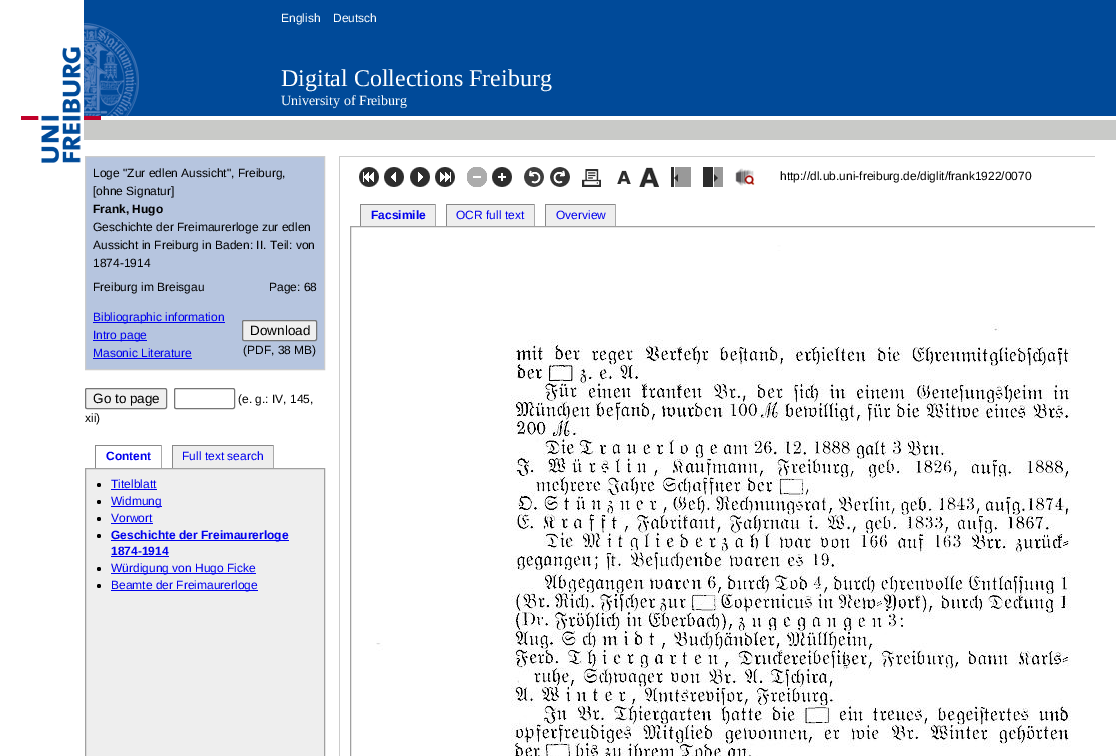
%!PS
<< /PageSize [1116 756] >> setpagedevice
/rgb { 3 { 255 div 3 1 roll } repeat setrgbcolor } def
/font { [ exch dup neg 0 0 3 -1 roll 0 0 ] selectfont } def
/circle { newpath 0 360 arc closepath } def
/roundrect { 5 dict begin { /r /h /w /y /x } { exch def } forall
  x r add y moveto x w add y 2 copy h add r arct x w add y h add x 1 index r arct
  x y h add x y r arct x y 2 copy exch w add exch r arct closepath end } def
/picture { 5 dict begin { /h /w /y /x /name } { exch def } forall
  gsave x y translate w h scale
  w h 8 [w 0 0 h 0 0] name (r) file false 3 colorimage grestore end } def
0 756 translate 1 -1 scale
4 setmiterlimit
255 255 255 rgb
0 0 1116 756 rectfill
(img/1.rgb) 84 0 1032 140 picture
(img/2.rgb) 21 47 60 116 picture
(img/3.rgb) 84 23 55 97 picture
182 197 223 rgb
85.5 156.5 moveto 324.5 156.5 lineto 324.5 369.5 lineto 85.5 369.5 lineto closepath gsave fill grestore
204 204 204 rgb
stroke
0 0 238 rgb
93 322 132 1 rectfill
93 340 54 1 rectfill
239 239 239 rgb
242.5 320.5 74 20 1.5 roundrect gsave fill grestore
118 118 118 rgb
stroke
0 0 238 rgb
93 358 99 1 rectfill
239 239 239 rgb
85.5 388.5 81 20 1.5 roundrect gsave fill grestore
118 118 118 rgb
stroke
174.5 388.5 60 20 1.5 roundrect stroke
[
  [95 445 67 1 136 136 136]
  [161 445 1 23 170 170 170]
  [95 445 1 23 136 136 136]
  [173 446 100 22 238 238 238]
  [172 445 102 1 136 136 136]
  [273 445 1 23 170 170 170]
  [172 445 1 23 136 136 136]
] { aload pop rgb rectfill } forall
238 238 238 rgb
85.5 468.5 moveto 324.5 468.5 lineto 324.5 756.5 lineto 85.5 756.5 lineto closepath gsave fill grestore
160 160 160 rgb
stroke
0 0 0 rgb
99 485 2 circle fill
0 0 238 rgb
111 489 46 1 rectfill
0 0 0 rgb
99 502 2 circle fill
0 0 238 rgb
111 506 51 1 rectfill
0 0 0 rgb
99 519 2 circle fill
0 0 238 rgb
111 523 42 1 rectfill
0 0 0 rgb
99 536 2 circle fill
0 0 238 rgb
111 540 178 1 rectfill
111 556 58 1 rectfill
0 0 0 rgb
99 569 2 circle fill
0 0 238 rgb
111 573 145 1 rectfill
0 0 0 rgb
99 586 2 circle fill
[
  [111 590 147 1 0 0 238]
  [339 156 756 1 204 204 204]
  [339 156 1 600 204 204 204]
] { aload pop rgb rectfill } forall
(img/4.rgb) 359 167 20 20 picture
(img/5.rgb) 384 167 20 20 picture
(img/6.rgb) 410 167 20 20 picture
(img/7.rgb) 435 167 20 20 picture
(img/8.rgb) 467 167 20 20 picture
(img/9.rgb) 492 167 20 20 picture
(img/10.rgb) 524 167 20 20 picture
(img/11.rgb) 550 167 20 20 picture
(img/12.rgb) 582 169 19 18 picture
(img/13.rgb) 617 170 14 14 picture
(img/14.rgb) 639 167 20 20 picture
(img/15.rgb) 671 167 20 20 picture
(img/16.rgb) 703 167 20 20 picture
(img/17.rgb) 735 168 20 18 picture
[
  [361 205 74 21 238 238 238]
  [360 204 76 1 136 136 136]
  [435 204 1 22 170 170 170]
  [360 204 1 22 136 136 136]
  [447 205 87 21 238 238 238]
  [446 204 89 1 136 136 136]
  [534 204 1 22 170 170 170]
  [446 204 1 22 136 136 136]
  [546 205 69 21 238 238 238]
  [545 204 71 1 136 136 136]
  [615 204 1 22 170 170 170]
  [545 204 1 22 136 136 136]
] { aload pop rgb rectfill } forall
gsave
85 156 1010 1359 rectclip
160 160 160 rgb
350.5 226.5 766 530 rectstroke
grestore
(img/18.rgb) 376 245 695 511 picture
/LiberationSans-Regular 12 font
255 255 255 rgb
281 22 moveto (English) show
333 22 moveto (Deutsch) show
/LiberationSerif-Regular 24 font
281 86 moveto (Digital Collections Freiburg) show
/LiberationSerif-Regular 14 font
281 105 moveto (University of Freiburg) show
/LiberationSans-Regular 12 font
0 0 0 rgb
93 177 moveto (Loge "Zur edlen Aussicht", Freiburg,) show
93 195 moveto ([ohne Signatur]) show
/LiberationSans-Bold 12 font
93 213 moveto (Frank, Hugo) show
/LiberationSans-Regular 12 font
[
  [(Geschichte der Freimaurerloge zur edlen) 93 231]
  [(Aussicht in Freiburg in Baden: II. Teil: von) 93 249]
  [(1874-1914) 93 267]
  [(Freiburg im Breisgau) 93 291]
  [(Page: 68) 269 291]
] { aload pop moveto show } forall
0 0 238 rgb
93 321 moveto (Bibliographic information) show
93 339 moveto (Intro page) show
/LiberationSans-Regular 13.5 font
0 0 0 rgb
250 335 moveto (Download) show
/LiberationSans-Regular 12 font
243 354 moveto (\(PDF, 38 MB\)) show
0 0 238 rgb
93 357 moveto (Masonic Literature) show
/LiberationSans-Regular 13.5 font
0 0 0 rgb
93 403 moveto (Go to page) show
/LiberationSans-Regular 12 font
238 403 moveto (\(e. g.: IV, 145,) show
85 422 moveto (xii\)) show
/LiberationSans-Bold 12 font
0 0 238 rgb
106 460 moveto (Content) show
/LiberationSans-Regular 12 font
[
  [(Full text search) 182 460]
  [(Titelblatt) 111 488]
  [(Widmung) 111 505]
  [(Vorwort) 111 522]
] { aload pop moveto show } forall
/LiberationSans-Bold 12 font
111 539 moveto (Geschichte der Freimaurerloge) show
111 555 moveto (1874-1914) show
/LiberationSans-Regular 12 font
111 572 moveto (Würdigung von Hugo Ficke) show
111 589 moveto (Beamte der Freimaurerloge) show
0 0 0 rgb
780 180 moveto (http://dl.ub.uni-freiburg.de/diglit/frank1922/0070) show
/LiberationSans-Bold 12 font
0 0 238 rgb
371 219 moveto (Facsimile) show
/LiberationSans-Regular 12 font
456 219 moveto (OCR full text) show
556 219 moveto (Overview) show
showpage
